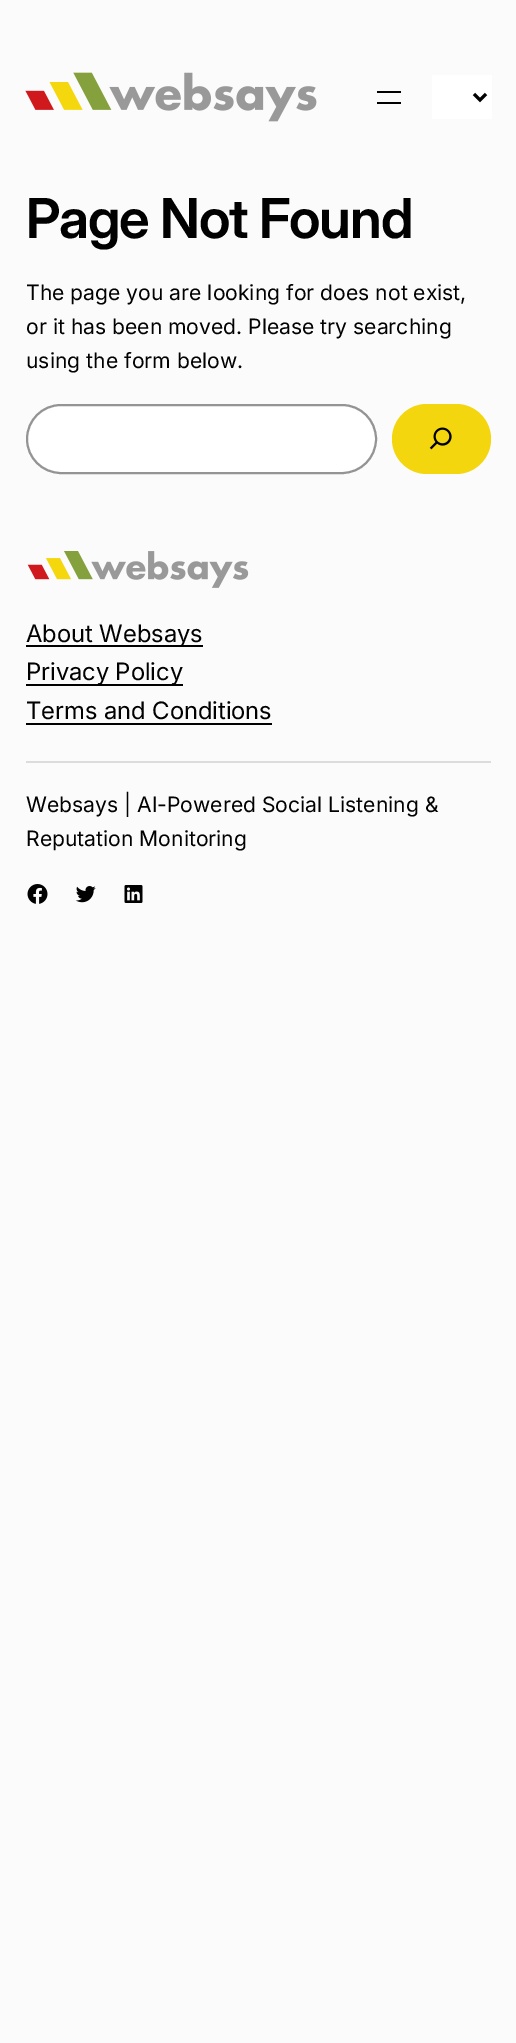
%!PS
<< /PageSize [516 2043] >> setpagedevice
/rgb { 3 { 255 div 3 1 roll } repeat setrgbcolor } def
/font { [ exch dup neg 0 0 3 -1 roll 0 0 ] selectfont } def
/roundrect { 5 dict begin { /r /h /w /y /x } { exch def } forall
  x r add y moveto x w add y 2 copy h add r arct x w add y h add x 1 index r arct
  x y h add x y r arct x y 2 copy exch w add exch r arct closepath end } def
/picture { 5 dict begin { /h /w /y /x /name } { exch def } forall
  gsave x y translate w h scale
  w h 8 [w 0 0 h 0 0] name (r) file false 3 colorimage grestore end } def
0 2043 translate 1 -1 scale
4 setmiterlimit
251 251 251 rgb
0 0 516 2043 rectfill
(img/1.rgb) 25 72 292 50 picture
[
  [377 91 24 2 1 1 1]
  [377 102 24 2 1 1 1]
  [432 75 60 44 255 255 255]
] { aload pop rgb rectfill } forall
0 0 0 rgb
3 setlinewidth
474 94 moveto 480 100 lineto 486 94 lineto stroke
255 255 255 rgb
27 405 349 68 34 roundrect gsave fill grestore
148 148 148 rgb
2 setlinewidth
stroke
243 214 13 rgb
392 404 99 70 35 roundrect fill
(img/2.rgb) 429 427 23 23 picture
(img/3.rgb) 27 551 222 37 picture
[
  [26 645 177 2 1 1 1]
  [26 684 157 2 1 1 1]
  [26 723 246 2 1 1 1]
  [26 761 465 2 220 220 220]
] { aload pop rgb rectfill } forall
(img/4.rgb) 27 884 21 20 picture
(img/5.rgb) 75 886 21 17 picture
(img/6.rgb) 124 885 19 18 picture
/Inter-SemiBold 55 font
1 1 1 rgb
26 238 moveto -1.1 0 (Page Not Found) ashow
/Inter-Regular 21.15 font
[
  [(The page you are looking for does not exist,) 26 300]
  [(or it has been moved. Please try searching) 26 334]
  [(using the form below.) 26 368]
] { aload pop moveto show } forall
/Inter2-Regular 24 font
[
  [(About Websays) 26 642]
  [(Privacy Policy) 26 680]
  [(Terms and Conditions) 26 719]
] { aload pop moveto show } forall
/Inter-Regular 21.15 font
26 812 moveto (Websays | AI-Powered Social Listening &) show
26 846 moveto (Reputation Monitoring) show
showpage
